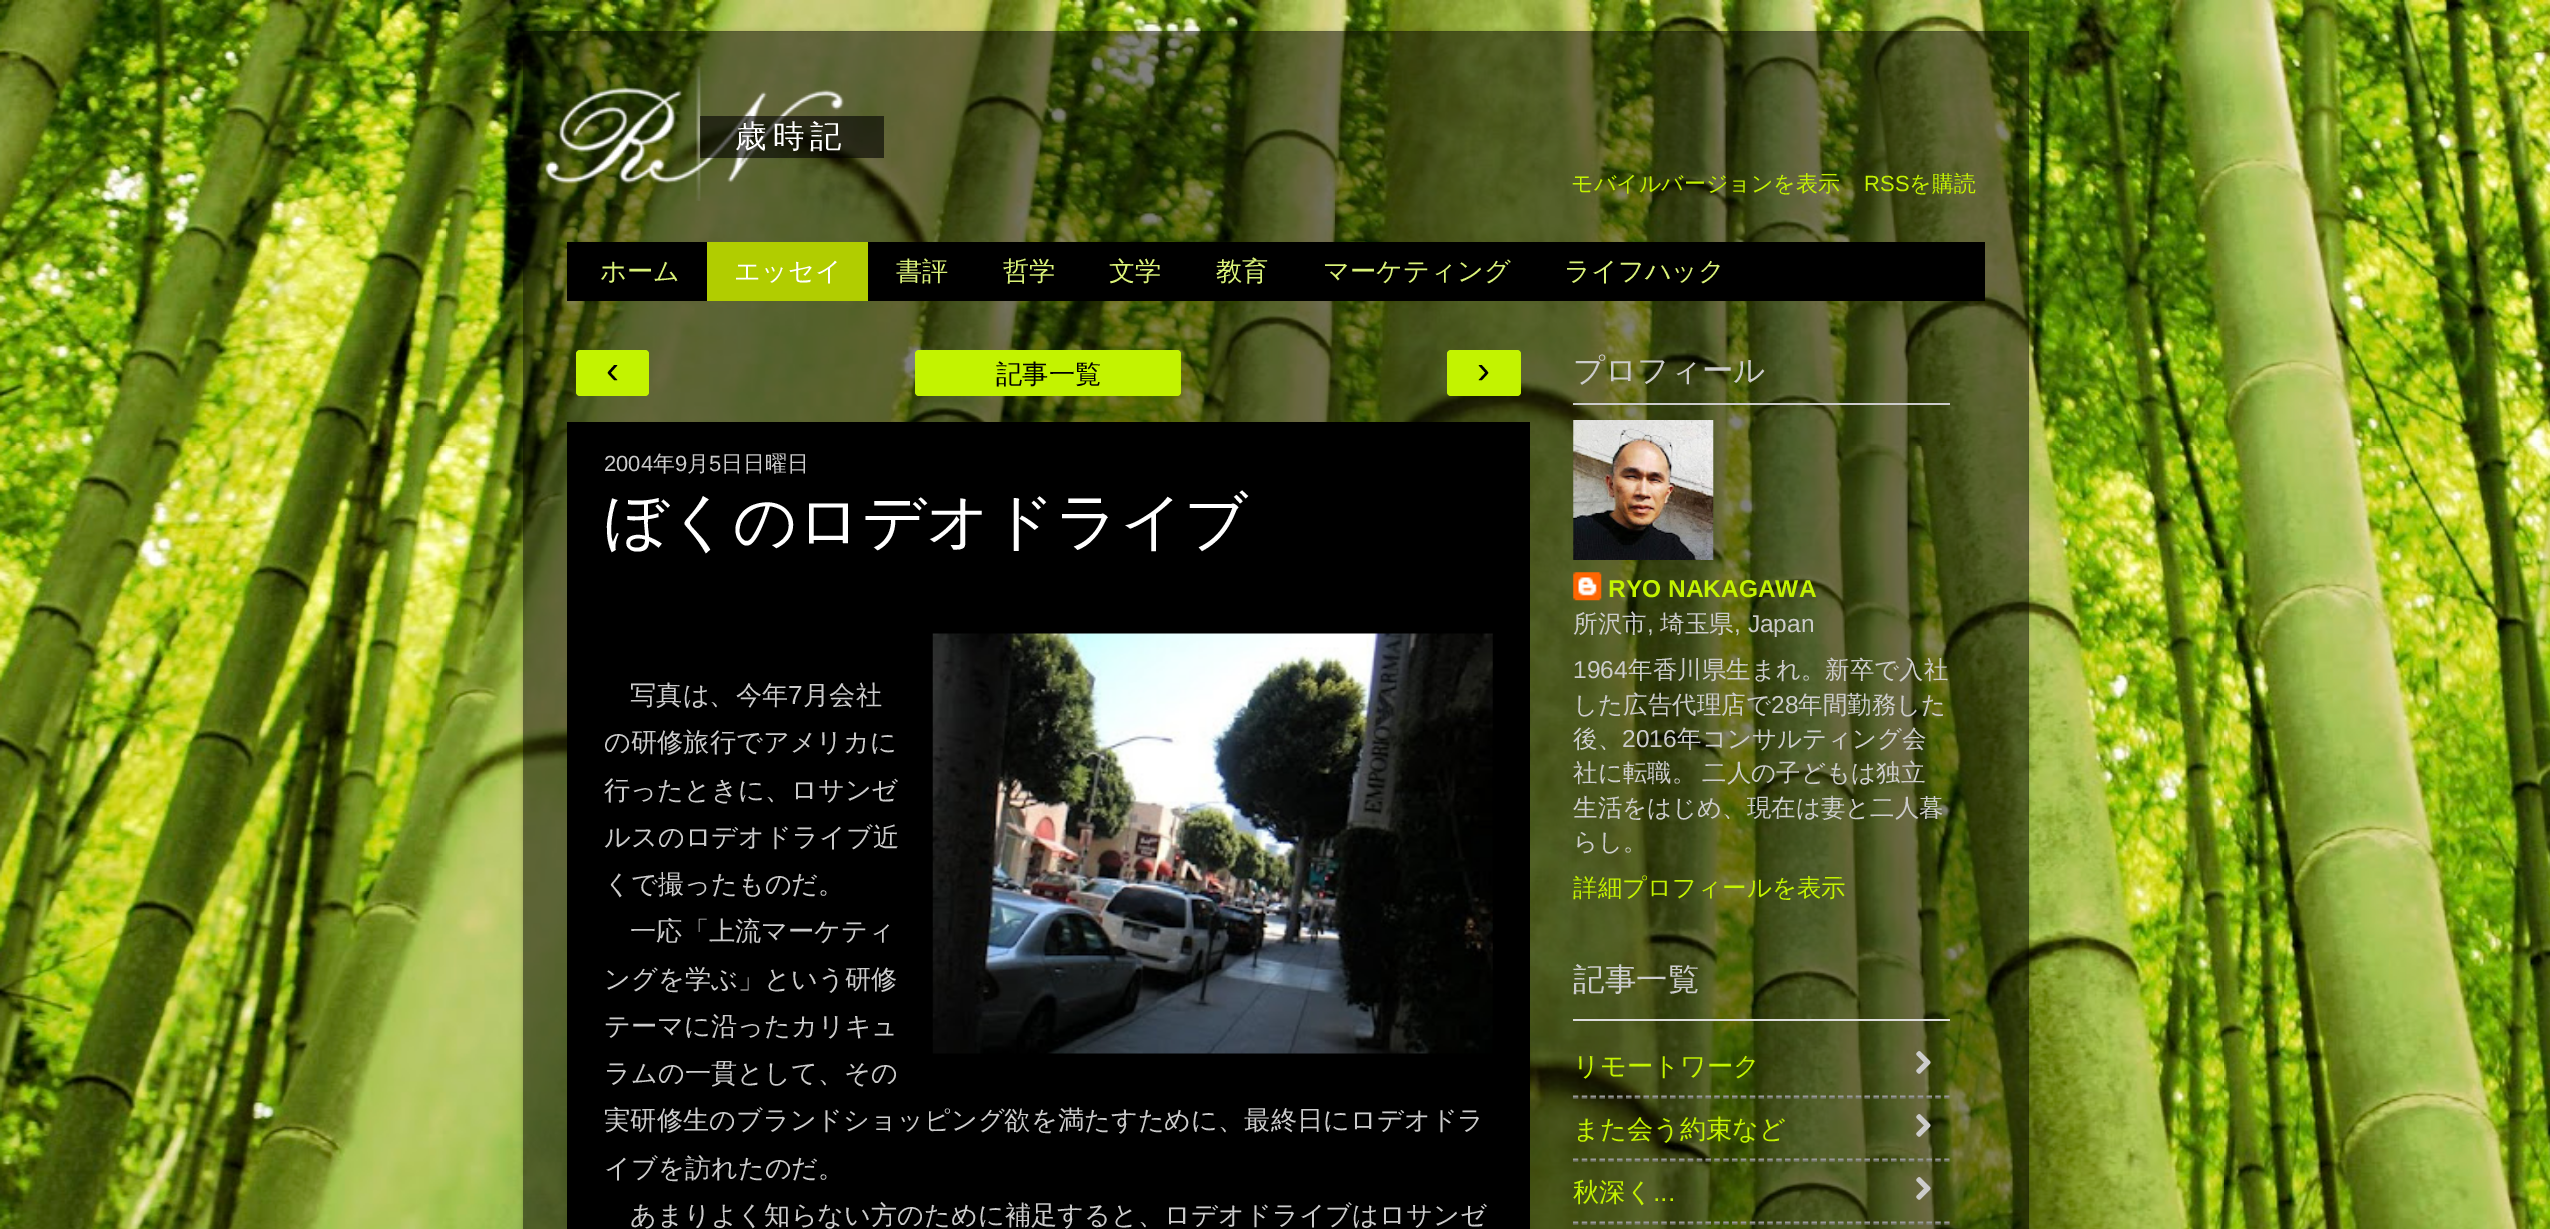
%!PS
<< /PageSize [2550 1229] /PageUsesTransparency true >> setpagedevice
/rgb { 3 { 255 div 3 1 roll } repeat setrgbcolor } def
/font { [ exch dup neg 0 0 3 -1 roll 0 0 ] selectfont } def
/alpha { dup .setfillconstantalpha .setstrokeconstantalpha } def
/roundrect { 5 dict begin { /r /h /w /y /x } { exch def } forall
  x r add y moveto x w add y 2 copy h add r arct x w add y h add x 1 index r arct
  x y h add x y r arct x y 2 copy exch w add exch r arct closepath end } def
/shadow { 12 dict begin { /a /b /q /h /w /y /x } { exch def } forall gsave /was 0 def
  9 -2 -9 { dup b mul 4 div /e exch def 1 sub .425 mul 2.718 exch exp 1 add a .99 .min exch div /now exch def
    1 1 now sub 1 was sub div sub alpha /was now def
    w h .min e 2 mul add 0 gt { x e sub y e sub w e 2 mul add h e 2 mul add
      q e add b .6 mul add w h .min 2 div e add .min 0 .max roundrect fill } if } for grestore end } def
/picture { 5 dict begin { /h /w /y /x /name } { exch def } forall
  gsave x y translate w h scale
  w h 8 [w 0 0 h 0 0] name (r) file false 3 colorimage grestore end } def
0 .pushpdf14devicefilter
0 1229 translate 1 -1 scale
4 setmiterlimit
255 255 255 rgb
0 0 2550 1229 rectfill
(img/1.rgb) 0 0 2550 1229 picture
gsave
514 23 moveto 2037 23 lineto 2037 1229 lineto 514 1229 lineto closepath 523 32 moveto 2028 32 lineto 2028 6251 lineto 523 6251 lineto closepath eoclip newpath
0 0 0 rgb
523 32 1505 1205 0 2.5 0.15 shadow
grestore
0.5 alpha
0 0 0 rgb
523 31 1506 1198 rectfill
1 alpha
(img/2.rgb) 545 66 299 135 picture
0.6 alpha
[
  [700 116 184 42 0 0 0]
] { aload pop rgb rectfill } forall
1 alpha
[
  [567 242 1418 59 0 0 0]
  [707 242 161 59 177 205 0]
] { aload pop rgb rectfill } forall
195 243 0 rgb
576 350 73 46 4 roundrect fill
915 350 266 46 4 roundrect fill
1447 350 74 46 4 roundrect fill
0 0 0 rgb
567 422 963 807 rectfill
(img/3.rgb) 932 633 561 421 picture
204 204 204 rgb
1573 403 377 2 rectfill
(img/4.rgb) 1573 420 141 140 picture
(img/5.rgb) 1573 572 29 29 picture
221 221 221 rgb
1573 1019 377 2 rectfill
153 153 153 rgb
1.8 setlinewidth
[5.25 3.59] 0 setdash
1573 1096.5 moveto 1949.5 1096.5 lineto stroke
(img/6.rgb) 1916 1051 15 23 picture
0.5 alpha
128 128 128 rgb
1573 1098 moveto 1949.5 1098 lineto stroke
1 alpha
153 153 153 rgb
1573 1159.5 moveto 1949.5 1159.5 lineto stroke
(img/7.rgb) 1916 1114 15 23 picture
0.5 alpha
128 128 128 rgb
1573 1161 moveto 1949.5 1161 lineto stroke
1 alpha
153 153 153 rgb
1573 1222.5 moveto 1949.5 1222.5 lineto stroke
(img/8.rgb) 1916 1177 15 23 picture
0.5 alpha
128 128 128 rgb
1573 1224 moveto 1949.5 1224 lineto stroke
/WenQuanYiZenHei-Medium 31.5 font
1 alpha
255 255 255 rgb
735 147 moveto 6 0 (歳時記) ashow
/WenQuanYiZenHei-Medium 22 font
195 243 0 rgb
1571 191 moveto (モバイルバージョンを表示) show
/LiberationSans-Regular 22 font
1864 191 moveto (RSS) show
/WenQuanYiZenHei-Medium 22 font
1909 191 moveto (を購読) show
/WenQuanYiZenHei-Medium 26.25 font
219 243 121 rgb
600 280 moveto (ホーム) show
255 255 255 rgb
734 280 moveto (エッセイ) show
219 243 121 rgb
[
  [(書評) 896 280]
  [(哲学) 1003 280]
  [(文学) 1109 280]
  [(教育) 1216 280]
  [(マーケティング) 1323 280]
  [(ライフハック) 1564 280]
] { aload pop moveto show } forall
/LiberationSans-Regular 39 font
0 0 0 rgb
606 383 moveto (‹) show
/WenQuanYiZenHei-Medium 26.25 font
996 383 moveto (記事一覧) show
/LiberationSans-Regular 39 font
1477 383 moveto (›) show
/LiberationSans-Regular 22 font
204 204 204 rgb
604 471 moveto (2004) show
/WenQuanYiZenHei-Medium 22 font
653 471 moveto (年) show
/LiberationSans-Regular 22 font
675 471 moveto (9) show
/WenQuanYiZenHei-Medium 22 font
687 471 moveto (月) show
/LiberationSans-Regular 22 font
709 471 moveto (5) show
/WenQuanYiZenHei-Medium 22 font
721 471 moveto (日日曜日) show
/WenQuanYiZenHei-Medium 63 font
255 255 255 rgb
604 543 moveto (ぼくのロデオドライブ) show
/WenQuanYiZenHei-Medium 26.25 font
204 204 204 rgb
630 704 moveto (写真は、今年) show
/LiberationSans-Regular 26.25 font
788 704 moveto (7) show
/WenQuanYiZenHei-Medium 26.25 font
[
  [(月会社) 803 704]
  [(の研修旅行でアメリカに) 604 751]
  [(行ったときに、ロサンゼ) 604 799]
  [(ルスのロデオドライブ近) 604 846]
  [(くで撮ったものだ。) 604 893]
  [(一応「上流マーケティ) 630 940]
  [(ングを学ぶ」という研修) 604 988]
  [(テーマに沿ったカリキュ) 604 1035]
  [(ラムの一貫として、その) 604 1082]
  [(実研修生のブランドショッピング欲を満たすために、最終日にロデオドラ) 604 1129]
  [(イブを訪れたのだ。) 604 1177]
  [(あまりよく知らない方のために補足すると、ロデオドライブはロサンゼ) 630 1224]
] { aload pop moveto show } forall
/WenQuanYiZenHei-Medium 31.5 font
1573 381 moveto (プロフィール) show
/LiberationSans-Bold 24.5 font
195 243 0 rgb
1608 597 moveto (RYO NAKAGAWA) show
/WenQuanYiZenHei-Medium 24.5 font
204 204 204 rgb
1573 632 moveto (所沢市) show
/LiberationSans-Regular 24.5 font
1647 632 moveto (,) show
/WenQuanYiZenHei-Medium 24.5 font
1660 632 moveto (埼玉県) show
/LiberationSans-Regular 24.5 font
1734 632 moveto (, Japan) show
1573 678 moveto (1964) show
/WenQuanYiZenHei-Medium 24.5 font
1628 678 moveto (年香川県生まれ。新卒で入社) show
1573 713 moveto (した広告代理店で) show
/LiberationSans-Regular 24.5 font
1771 713 moveto (28) show
/WenQuanYiZenHei-Medium 24.5 font
1798 713 moveto (年間勤務した) show
1573 747 moveto (後、) show
/LiberationSans-Regular 24.5 font
1622 747 moveto (2016) show
/WenQuanYiZenHei-Medium 24.5 font
1677 747 moveto (年コンサルティング会) show
1573 781 moveto -1 0 32 (社に転職。 二人の子どもは独立) widthshow
1573 816 moveto (生活をはじめ、現在は妻と二人暮) show
1573 850 moveto (らし。) show
195 243 0 rgb
1573 896 moveto (詳細プロフィールを表示) show
/WenQuanYiZenHei-Medium 31.5 font
204 204 204 rgb
1573 990 moveto (記事一覧) show
/WenQuanYiZenHei-Medium 26.25 font
195 243 0 rgb
[
  [(リモートワーク) 1573 1075]
  [(また会う約束など) 1573 1138]
  [(秋深く) 1573 1201]
] { aload pop moveto show } forall
/LiberationSans-Regular 26.25 font
1653 1201 moveto (...) show
.poppdf14devicefilter showpage
